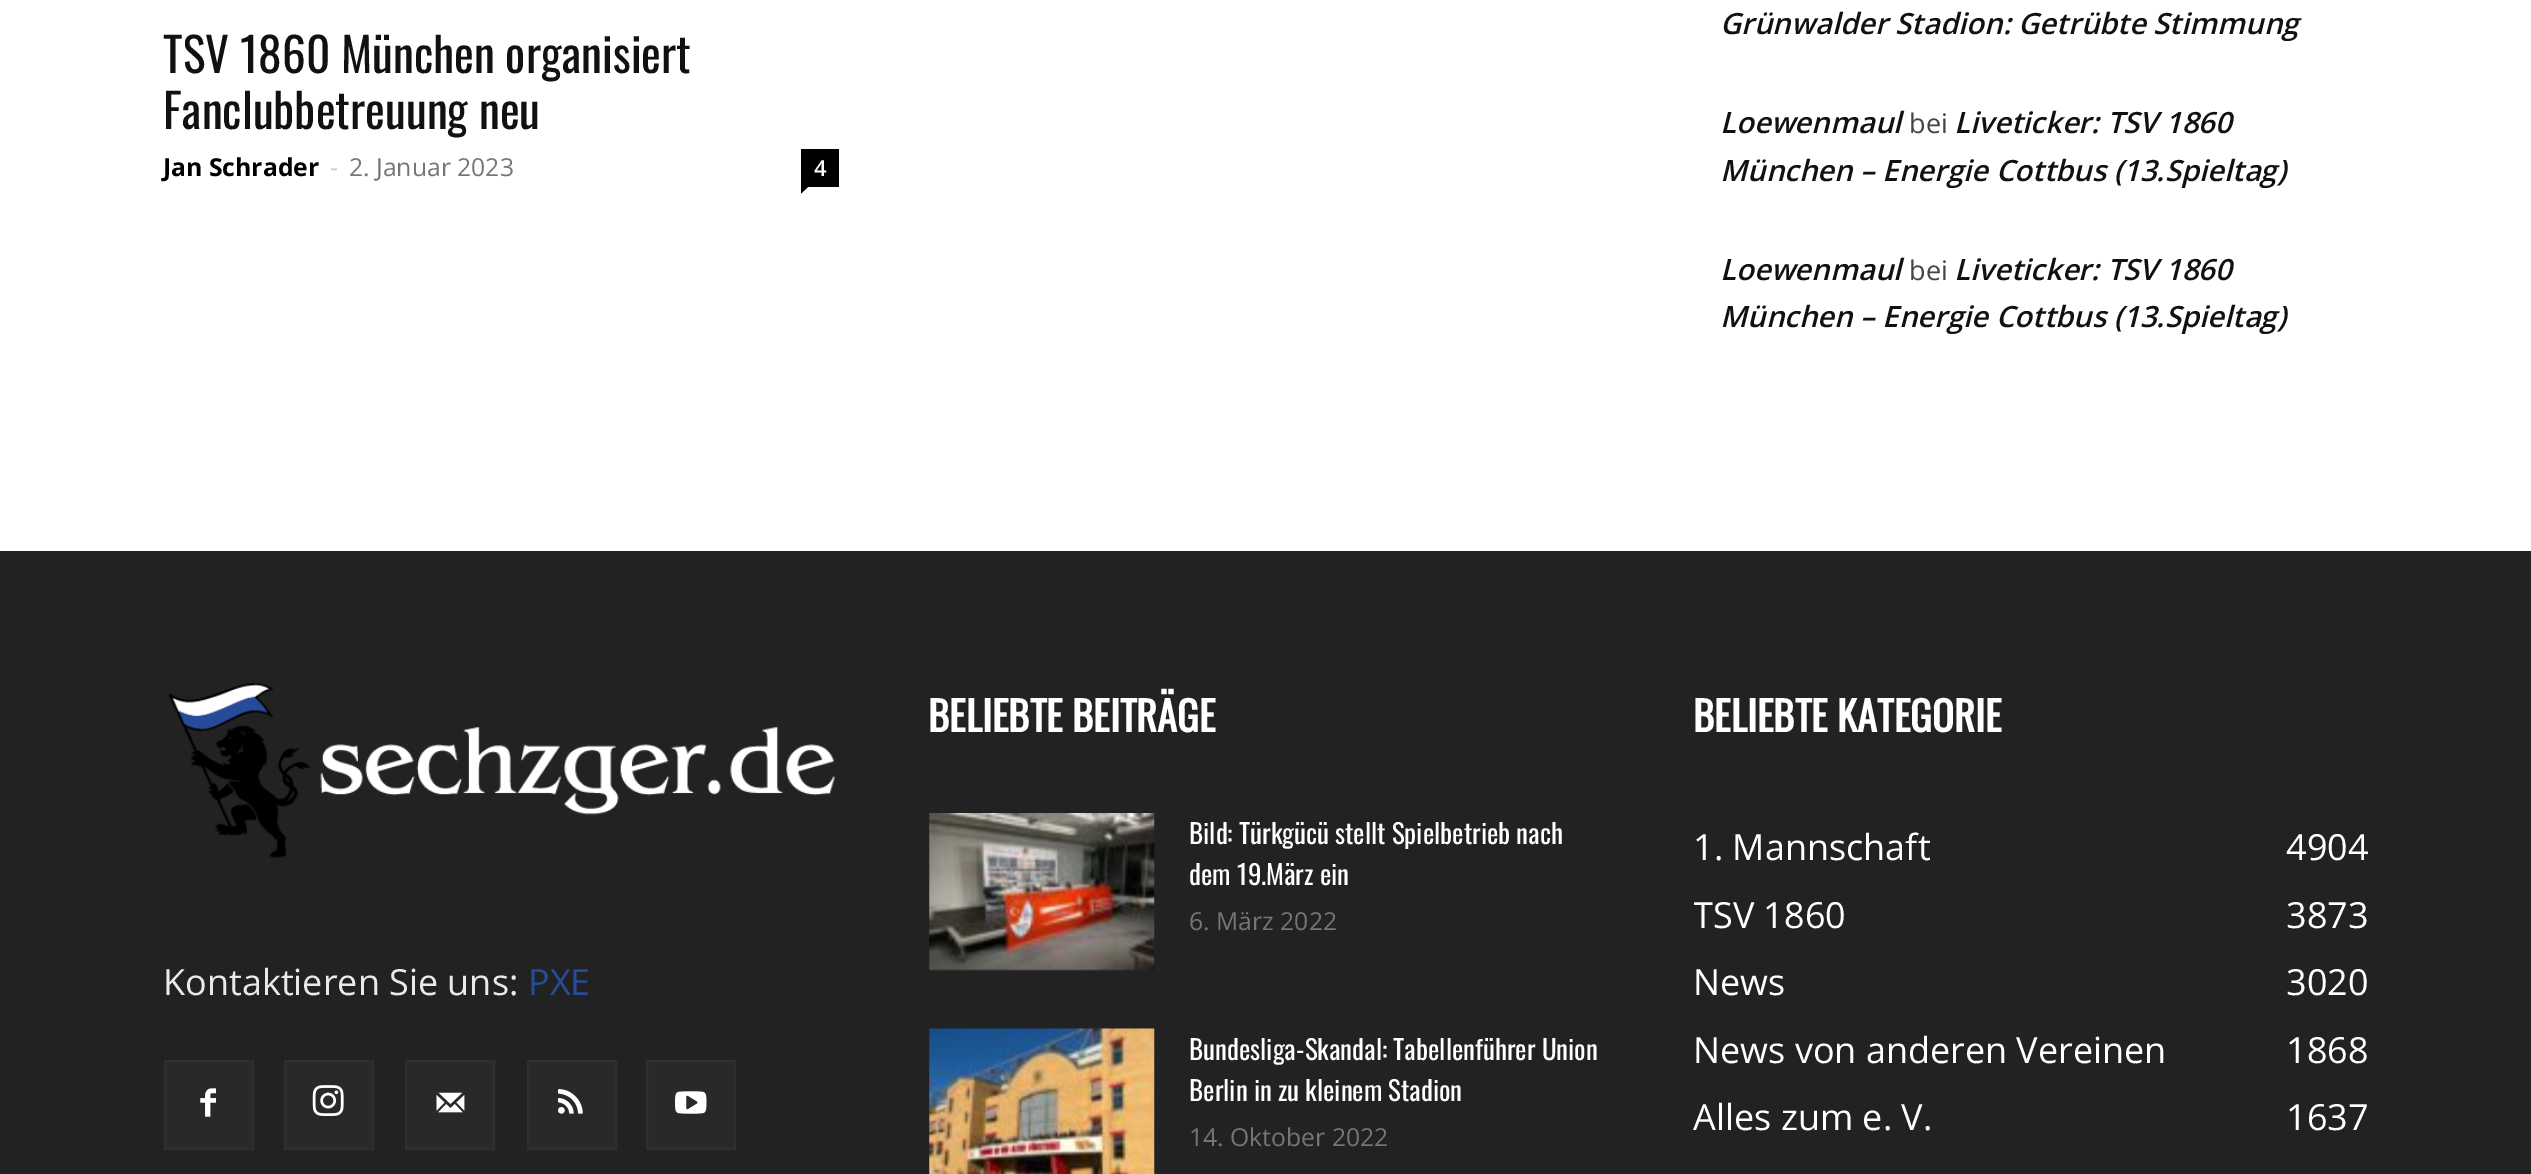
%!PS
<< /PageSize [2531 1174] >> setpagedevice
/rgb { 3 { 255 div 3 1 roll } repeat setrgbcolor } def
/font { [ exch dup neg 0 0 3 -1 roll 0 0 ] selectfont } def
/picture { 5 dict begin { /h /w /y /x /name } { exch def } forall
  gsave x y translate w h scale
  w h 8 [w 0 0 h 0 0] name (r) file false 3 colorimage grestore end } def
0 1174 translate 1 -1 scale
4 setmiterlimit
255 255 255 rgb
0 0 2531 1174 rectfill
0 0 0 rgb
801 149 38 38 rectfill
801 187 moveto 808 187 lineto 801 193.5 lineto closepath fill
34 34 34 rgb
0 551 2531 623 rectfill
(img/1.rgb) 168 683 667 175 picture
41 41 41 rgb
166 1062 86 86 rectfill
(img/2.rgb) 200 1088 16 29 picture
47 47 47 rgb
2 setlinewidth
165 1061 88 88 rectstroke
41 41 41 rgb
286 1062 86 86 rectfill
(img/3.rgb) 312 1085 32 31 picture
47 47 47 rgb
285 1061 88 88 rectstroke
41 41 41 rgb
407 1062 86 86 rectfill
(img/4.rgb) 436 1092 29 21 picture
47 47 47 rgb
406 1061 88 88 rectstroke
41 41 41 rgb
529 1062 86 86 rectfill
(img/5.rgb) 558 1089 25 25 picture
47 47 47 rgb
528 1061 88 88 rectstroke
41 41 41 rgb
648 1062 86 86 rectfill
(img/6.rgb) 675 1091 32 23 picture
47 47 47 rgb
647 1061 88 88 rectstroke
(img/7.rgb) 929 813 226 158 picture
(img/8.rgb) 929 1028 226 146 picture
/Oswald-Regular 47.25 font
17 17 17 rgb
163 73 moveto (TSV 1860 München organisiert) show
163 129 moveto (Fanclubbetreuung neu) show
/OpenSans-Bold 24.75 font
0 0 0 rgb
163 176 moveto (Jan Schrader) show
/OpenSans-Regular 24.75 font
204 204 204 rgb
330 176 moveto (-) show
118 118 118 rgb
349 176 moveto (2. Januar 2023) show
/OpenSans-SemiBold 22 font
255 255 255 rgb
814 176 moveto (4) show
/OpenSans-SemiBoldItalic 29.25 font
17 17 17 rgb
1720 34 moveto (Grünwalder Stadion: Getrübte Stimmung) show
1720 133 moveto (Loewenmaul) show
/OpenSans-Regular 27 font
68 68 68 rgb
1909 133 moveto (bei) show
/OpenSans-SemiBoldItalic 29.25 font
17 17 17 rgb
[
  [(Liveticker: TSV 1860) 1954 133]
  [(München – Energie Cottbus \(13.Spieltag\)) 1720 181]
  [(Loewenmaul) 1720 280]
] { aload pop moveto show } forall
/OpenSans-Regular 27 font
68 68 68 rgb
1909 280 moveto (bei) show
/OpenSans-SemiBoldItalic 29.25 font
17 17 17 rgb
1954 280 moveto (Liveticker: TSV 1860) show
1720 327 moveto (München – Energie Cottbus \(13.Spieltag\)) show
/OpenSans-Regular 36 font
234 234 234 rgb
163 995 moveto (Kontaktieren Sie uns:) show
38 76 154 rgb
528 995 moveto (PXE) show
/Oswald-Bold 40.5 font
255 255 255 rgb
928 732 moveto (BELIEBTE BEITRÄGE) show
/Oswald-Regular 27 font
1189 844 moveto (Bild: Türkgücü stellt Spielbetrieb nach) show
1189 885 moveto (dem 19.März ein) show
/OpenSans-Regular 24.75 font
118 118 118 rgb
1189 930 moveto (6. März 2022) show
/Oswald-Regular 27 font
255 255 255 rgb
1189 1060 moveto (Bundesliga-Skandal: Tabellenführer Union) show
1189 1101 moveto (Berlin in zu kleinem Stadion) show
/OpenSans-Regular 24.75 font
118 118 118 rgb
1189 1146 moveto (14. Oktober 2022) show
/Oswald-Bold 40.5 font
255 255 255 rgb
1693 732 moveto (BELIEBTE KATEGORIE) show
/OpenSans-Regular 36 font
1693 860 moveto (1. Mannschaft) show
2286 860 moveto (4904) show
gsave
1694 675 675 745 rectclip
1693 928 moveto (TSV 1860) show
grestore
[
  [(3873) 2286 928]
  [(News) 1693 995]
  [(3020) 2286 995]
  [(News von anderen Vereinen) 1693 1063]
  [(1868) 2286 1063]
  [(Alles zum e. V.) 1693 1130]
  [(1637) 2286 1130]
] { aload pop moveto show } forall
showpage
